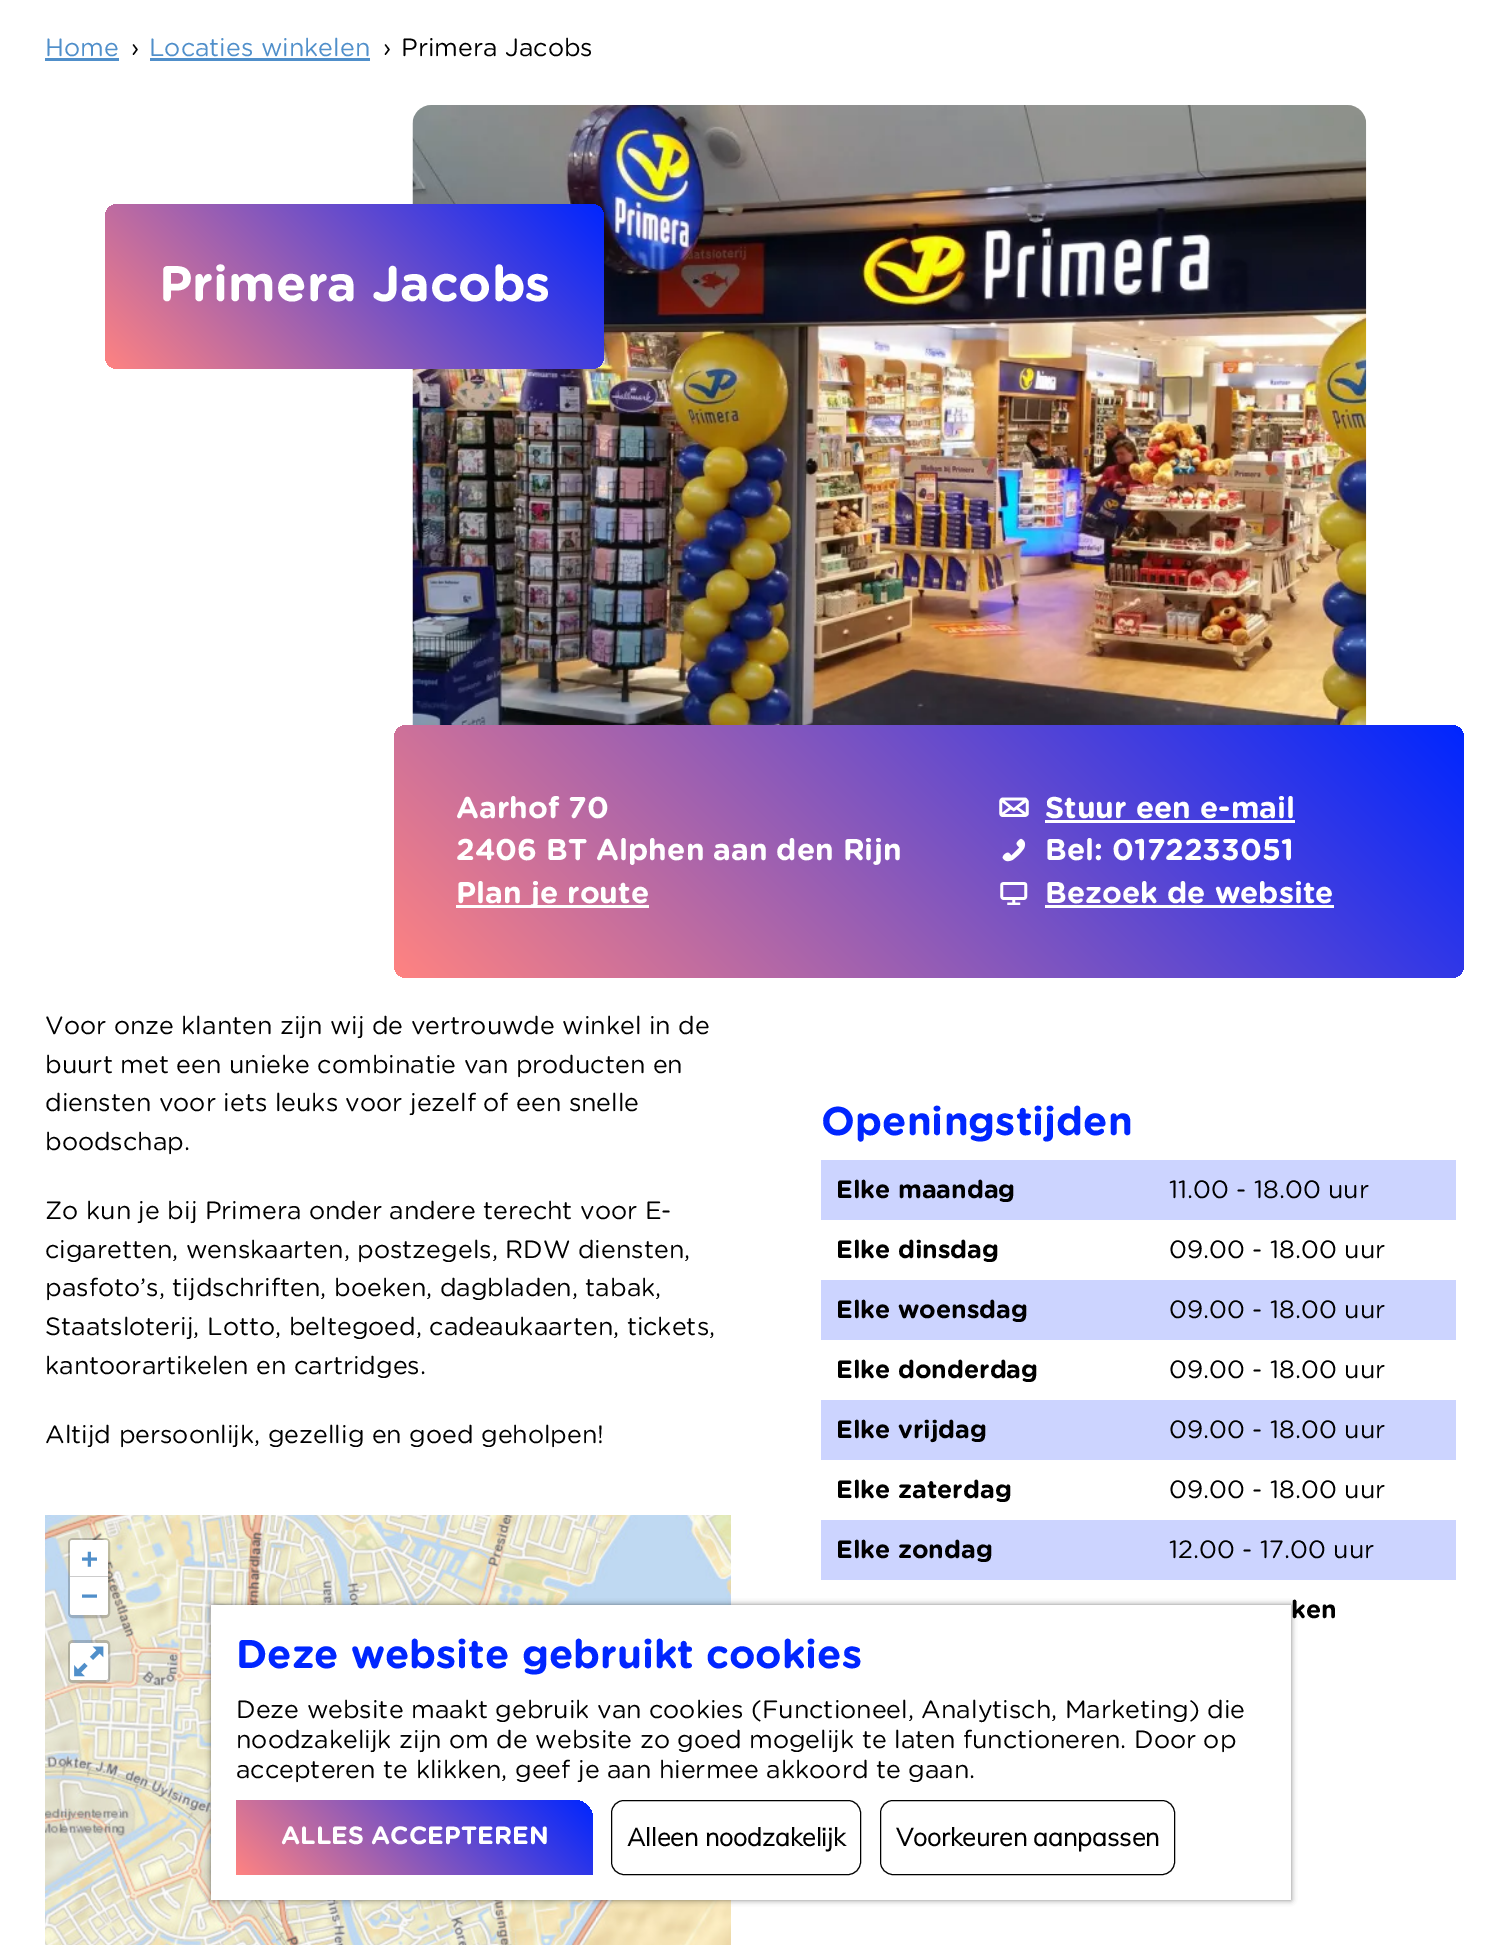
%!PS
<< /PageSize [1501 1945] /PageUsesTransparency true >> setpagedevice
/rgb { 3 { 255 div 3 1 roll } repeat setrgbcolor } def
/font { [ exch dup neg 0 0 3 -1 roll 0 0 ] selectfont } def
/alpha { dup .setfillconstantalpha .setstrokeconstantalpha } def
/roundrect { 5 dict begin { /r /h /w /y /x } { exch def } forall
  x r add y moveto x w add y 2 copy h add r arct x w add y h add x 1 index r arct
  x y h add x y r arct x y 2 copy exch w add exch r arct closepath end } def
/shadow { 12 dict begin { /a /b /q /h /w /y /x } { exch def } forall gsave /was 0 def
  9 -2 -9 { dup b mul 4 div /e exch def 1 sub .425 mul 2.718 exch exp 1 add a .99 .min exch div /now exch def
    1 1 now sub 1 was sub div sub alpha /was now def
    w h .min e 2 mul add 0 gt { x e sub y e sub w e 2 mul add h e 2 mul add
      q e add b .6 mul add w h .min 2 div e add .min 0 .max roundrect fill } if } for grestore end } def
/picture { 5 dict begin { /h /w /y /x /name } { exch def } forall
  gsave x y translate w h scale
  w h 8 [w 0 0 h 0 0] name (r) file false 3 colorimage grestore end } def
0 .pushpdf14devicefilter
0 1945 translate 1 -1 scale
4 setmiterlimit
255 255 255 rgb
0 0 1501 1945 rectfill
80 143 202 rgb
45 58 74 3 rectfill
150 58 220 3 rectfill
(img/1.rgb) 412 105 955 620 picture
gsave 105 204 499 165 13 roundrect clip newpath
<< /ShadingType 2 /ColorSpace /DeviceRGB /Coords [188 452 520 120] /Extend [true true] /Function << /FunctionType 2 /Domain [0 1] /C0 [1 0.514 0.506] /C1 [0 0.149 1] /N 1 >> >> shfill grestore
gsave 394 725 1070 253 13 roundrect clip newpath
<< /ShadingType 2 /ColorSpace /DeviceRGB /Coords [598 1182 1259 521] /Extend [true true] /Function << /FunctionType 2 /Domain [0 1] /C0 [1 0.514 0.506] /C1 [0 0.149 1] /N 1 >> >> shfill grestore
255 255 255 rgb
456 905 193 3 rectfill
(img/2.rgb) 999 797 30 20 picture
1045 820 250 3 rectfill
(img/3.rgb) 1002 838 24 24 picture
(img/4.rgb) 1000 882 28 23 picture
1045 905 289 3 rectfill
(img/5.rgb) 45 1515 231 184 picture
(img/6.rgb) 276 1515 320 90 picture
(img/7.rgb) 596 1515 135 90 picture
(img/8.rgb) 45 1699 231 246 picture
(img/9.rgb) 276 1900 320 45 picture
(img/10.rgb) 596 1900 135 45 picture
0.2 alpha
0 0 0 rgb
3 setlinewidth
69.5 1539.5 39 77 3.5 roundrect stroke
1 alpha
255 255 255 rgb
72.5 1540 moveto 105.5 1540 lineto 107 1540 108 1541 108 1542.5 curveto 108 1578 lineto 70 1578 lineto 70 1542.5 lineto 70 1541 71 1540 72.5 1540 curveto closepath fill
204 204 204 rgb
70 1576 38 1 rectfill
255 255 255 rgb
70 1578 moveto 108 1578 lineto 108 1612.5 lineto 108 1614 107 1615 105.5 1615 curveto 72.5 1615 lineto 71 1615 70 1614 70 1612.5 curveto closepath fill
0.2 alpha
0 0 0 rgb
69.5 1641.5 39 40 3.5 roundrect stroke
1 alpha
255 255 255 rgb
70 1643 38 37 2.5 roundrect fill
(img/11.rgb) 74 1646 30 31 picture
[
  [821 1160 635 60 204 212 255]
  [821 1280 635 60 204 212 255]
  [821 1400 635 60 204 212 255]
  [821 1520 635 60 204 212 255]
] { aload pop rgb rectfill } forall
0 0 0 rgb
211 1605 1080 295 0 3 0.5 shadow
255 255 255 rgb
211 1605 1080 295 rectfill
gsave 236 1800 moveto 574 1800 lineto 584.5 1800 593 1808.5 593 1819 curveto 593 1875 lineto 236 1875 lineto closepath clip newpath
<< /ShadingType 2 /ColorSpace /DeviceRGB /Coords [307 1945 522 1730] /Extend [true true] /Function << /FunctionType 2 /Domain [0 1] /C0 [1 0.514 0.506] /C1 [0 0.149 1] /N 1 >> >> shfill grestore
0 0 0 rgb
1 setlinewidth
611.5 1800.5 249 74 12.5 roundrect stroke
880.5 1800.5 294 74 12.5 roundrect stroke
/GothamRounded-Regular 25 font
80 143 202 rgb
45 56 moveto (Home) show
0 0 0 rgb
131 56 moveto (›) show
80 143 202 rgb
149 56 moveto (Locaties winkelen) show
0 0 0 rgb
383 56 moveto (›) show
401 56 moveto (Primera Jacobs) show
/GothamRounded-Bold 50 font
255 255 255 rgb
159 301 moveto (Primera Jacobs) show
/GothamRounded-Bold 30 font
[
  [(Aarhof 70) 456 818]
  [(2406 BT Alphen aan den Rijn) 456 860]
  [(Plan je route) 456 903]
  [(Stuur een e-mail) 1045 818]
  [(Bel: 0172233051) 1045 860]
  [(Bezoek de website) 1045 903]
] { aload pop moveto show } forall
/GothamRounded-Regular 25 font
0 0 0 rgb
[
  [(Voor onze klanten zijn wij de vertrouwde winkel in de) 45 1034]
  [(buurt met een unieke combinatie van producten en) 45 1073]
  [(diensten voor iets leuks voor jezelf of een snelle) 45 1111]
  [(boodschap.) 45 1150]
  [(Zo kun je bij Primera onder andere terecht voor E-) 45 1219]
  [(cigaretten, wenskaarten, postzegels, RDW diensten,) 45 1258]
  [(pasfoto’s, tijdschriften, boeken, dagbladen, tabak,) 45 1296]
  [(Staatsloterij, Lotto, beltegoed, cadeaukaarten, tickets,) 45 1335]
  [(kantoorartikelen en cartridges.) 45 1374]
  [(Altijd persoonlijk, gezellig en goed geholpen!) 45 1443]
] { aload pop moveto show } forall
/DejaVuSansMono-Bold 28 font
80 143 202 rgb
81 1568 moveto (+) show
81 1605 moveto (−) show
/GothamRounded-Bold 40 font
0 38 255 rgb
821 1135 moveto (Openingstijden) show
/GothamRounded-Bold 25 font
0 0 0 rgb
836 1198 moveto (Elke maandag) show
/GothamRounded-Regular 25 font
1169 1198 moveto (11.00 - 18.00 uur) show
/GothamRounded-Bold 25 font
836 1258 moveto (Elke dinsdag) show
/GothamRounded-Regular 25 font
1169 1258 moveto (09.00 - 18.00 uur) show
/GothamRounded-Bold 25 font
836 1318 moveto (Elke woensdag) show
/GothamRounded-Regular 25 font
1169 1318 moveto (09.00 - 18.00 uur) show
/GothamRounded-Bold 25 font
836 1378 moveto (Elke donderdag) show
/GothamRounded-Regular 25 font
1169 1378 moveto (09.00 - 18.00 uur) show
/GothamRounded-Bold 25 font
836 1438 moveto (Elke vrijdag) show
/GothamRounded-Regular 25 font
1169 1438 moveto (09.00 - 18.00 uur) show
/GothamRounded-Bold 25 font
836 1498 moveto (Elke zaterdag) show
/GothamRounded-Regular 25 font
1169 1498 moveto (09.00 - 18.00 uur) show
/GothamRounded-Bold 25 font
836 1558 moveto (Elke zondag) show
/GothamRounded-Regular 25 font
1169 1558 moveto (12.00 - 17.00 uur) show
/GothamRounded-Bold 25 font
1291 1618 moveto (ken) show
/GothamRounded-Bold 40 font
0 38 255 rgb
236 1668 moveto (Deze website gebruikt cookies) show
/GothamRounded-Regular 25 font
0 0 0 rgb
[
  [(Deze website maakt gebruik van cookies \(Functioneel, Analytisch, Marketing\) die) 236 1718]
  [(noodzakelijk zijn om de website zo goed mogelijk te laten functioneren. Door op) 236 1748]
  [(accepteren te klikken, geef je aan hiermee akkoord te gaan.) 236 1778]
] { aload pop moveto show } forall
/GothamRounded-Bold 25 font
255 255 255 rgb
281 1844 moveto (ALLES ACCEPTEREN) show
/Mulish-Bold 25 font
0 0 0 rgb
627 1846 moveto (Alleen noodzakelijk) show
896 1846 moveto (Voorkeuren aanpassen) show
.poppdf14devicefilter showpage
